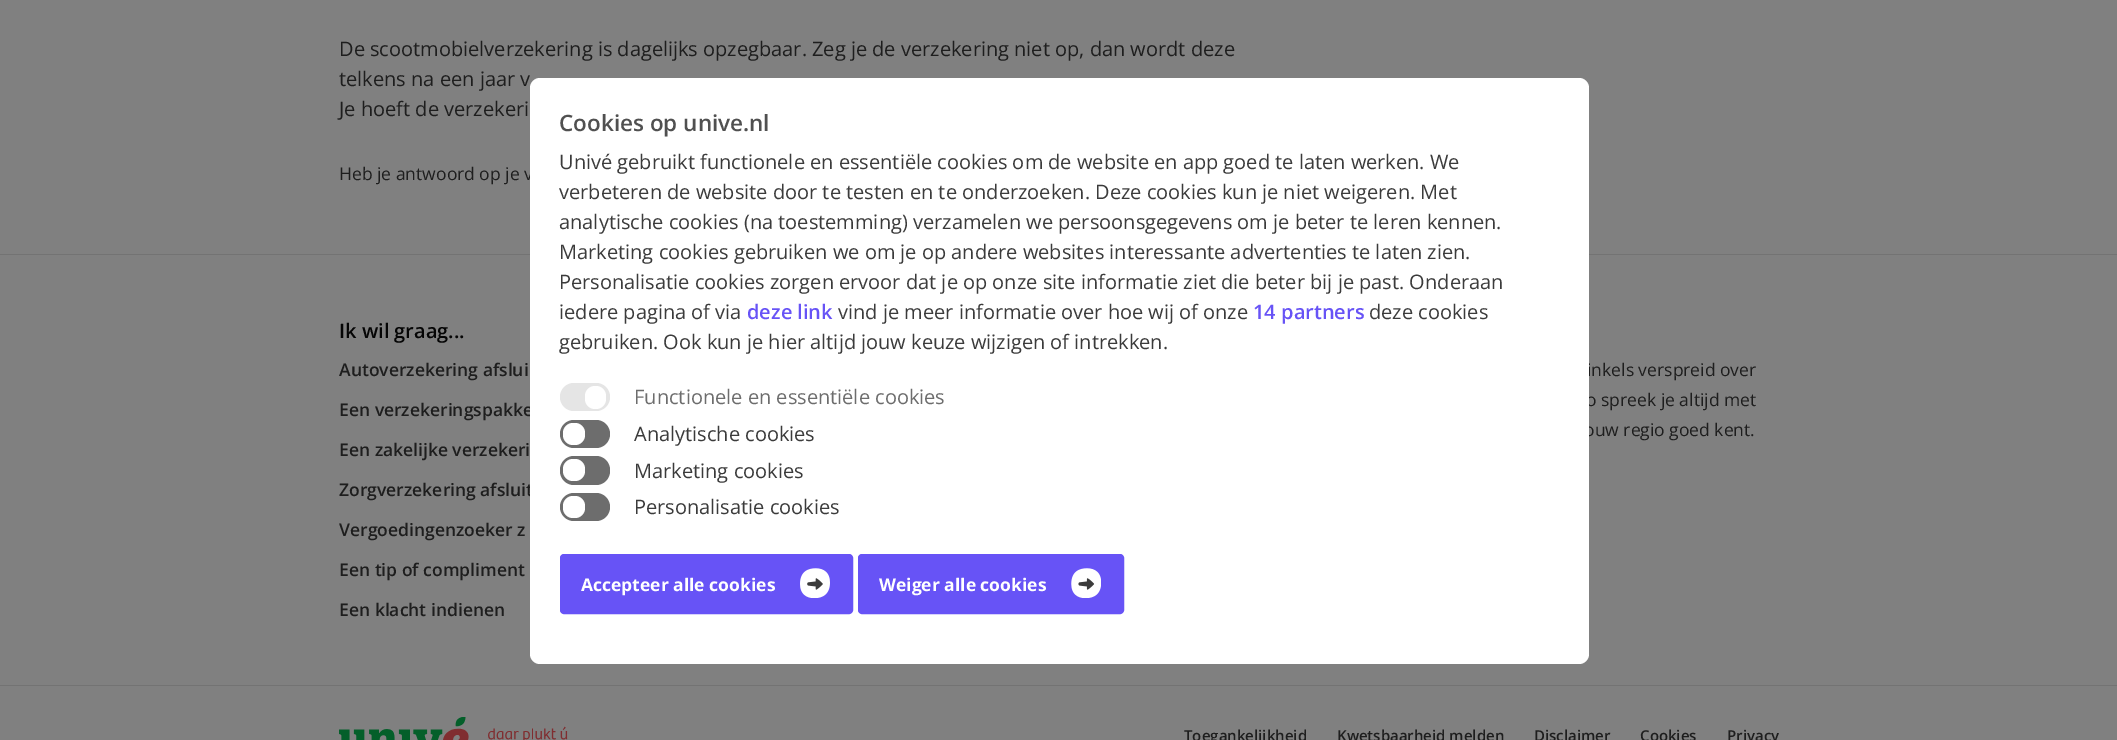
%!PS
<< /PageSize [2117 740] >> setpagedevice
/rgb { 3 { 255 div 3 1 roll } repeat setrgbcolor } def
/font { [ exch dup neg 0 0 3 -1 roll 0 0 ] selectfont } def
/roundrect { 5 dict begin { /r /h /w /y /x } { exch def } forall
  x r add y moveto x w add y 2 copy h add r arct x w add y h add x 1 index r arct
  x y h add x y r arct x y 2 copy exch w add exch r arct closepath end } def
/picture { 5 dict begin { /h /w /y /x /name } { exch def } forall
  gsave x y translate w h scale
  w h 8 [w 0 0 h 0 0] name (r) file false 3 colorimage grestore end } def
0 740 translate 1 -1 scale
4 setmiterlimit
128 128 128 rgb
0 0 2117 740 rectfill
115 115 115 rgb
0 254 2117 1 rectfill
0 685 2117 1 rectfill
(img/1.rgb) 339 717 229 23 picture
/OpenSans-Regular 20 font
30 30 30 rgb
[
  [(De scootmobielverzekering is dagelijks opzegbaar. Zeg je de verzekering niet op, dan wordt deze) 339 56]
  [(telkens na een jaar v) 339 86]
  [(Je hoeft de verzekeri) 339 116]
] { aload pop moveto show } forall
/OpenSans-Regular 17.5 font
339 180 moveto (Heb je antwoord op je v) show
/OpenSans-SemiBold 20 font
5 5 5 rgb
339 338 moveto (Ik wil graag...) show
/OpenSans-SemiBold 17.5 font
30 30 30 rgb
[
  [(Autoverzekering afslui) 339 376]
  [(Een verzekeringspakke) 339 416]
  [(Een zakelijke verzekeri) 339 456]
  [(Zorgverzekering afsluit) 339 496]
  [(Vergoedingenzoeker z) 339 536]
  [(Een tip of compliment) 339 576]
  [(Een klacht indienen) 339 616]
] { aload pop moveto show } forall
/OpenSans-Regular 17.5 font
[
  [(inkels verspreid over) 1587 376]
  [(o spreek je altijd met) 1586 406]
  [(ouw regio goed kent.) 1584 436]
] { aload pop moveto show } forall
/OpenSans-SemiBold 15 font
[
  [(Toegankelijkheid) 1184 741]
  [(Kwetsbaarheid melden) 1337 741]
  [(Disclaimer) 1534 741]
  [(Cookies) 1640 741]
  [(Privacy) 1727 741]
] { aload pop moveto show } forall
255 255 255 rgb
530 78 1059 586 10 roundrect fill
/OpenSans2-SemiBold 22.5 font
80 80 80 rgb
559 131 moveto (Cookies op unive.nl) show
/OpenSans2-Regular 20 font
59 59 59 rgb
[
  [(Univé gebruikt functionele en essentiële cookies om de website en app goed te laten werken. We) 559 169]
  [(verbeteren de website door te testen en te onderzoeken. Deze cookies kun je niet weigeren. Met) 559 199]
  [(analytische cookies \(na toestemming\) verzamelen we persoonsgegevens om je beter te leren kennen.) 559 229]
  [(Marketing cookies gebruiken we om je op andere websites interessante advertenties te laten zien.) 559 259]
  [(Personalisatie cookies zorgen ervoor dat je op onze site informatie ziet die beter bij je past. Onderaan) 559 289]
  [(iedere pagina of via) 559 319]
] { aload pop moveto show } forall
/OpenSans2-SemiBold 20 font
103 83 246 rgb
747 319 moveto (deze link) show
/OpenSans2-Regular 20 font
59 59 59 rgb
838 319 moveto (vind je meer informatie over hoe wij of onze) show
/OpenSans2-SemiBold 20 font
103 83 246 rgb
1253 319 moveto (14 partners) show
/OpenSans2-Regular 20 font
59 59 59 rgb
1369 319 moveto (deze cookies) show
559 349 moveto (gebruiken. Ook kun je hier altijd jouw keuze wijzigen of intrekken.) show
229 229 229 rgb
560 383 50 28 14 roundrect fill
255 255 255 rgb
585 386 21 23 10 roundrect fill
109 109 109 rgb
634 404 moveto (Functionele en essentiële cookies) show
560 420 50 28 14 roundrect fill
255 255 255 rgb
563 423 22 22 10 roundrect fill
59 59 59 rgb
634 441 moveto (Analytische cookies) show
109 109 109 rgb
560 456 50 29 14 roundrect fill
255 255 255 rgb
563 459 22 22 10 roundrect fill
59 59 59 rgb
634 478 moveto (Marketing cookies) show
109 109 109 rgb
560 493 50 28 14 roundrect fill
255 255 255 rgb
563 496 22 22 10 roundrect fill
59 59 59 rgb
634 514 moveto (Personalisatie cookies) show
103 83 246 rgb
561.5 555.5 290 57 2.5 roundrect gsave fill grestore
3 setlinewidth
stroke
/OpenSans-Bold 17.5 font
255 255 255 rgb
581 591 moveto (Accepteer alle cookies) show
(img/2.rgb) 800 568 30 30 picture
103 83 246 rgb
859.5 555.5 263 57 2.5 roundrect gsave fill grestore
stroke
255 255 255 rgb
879 591 moveto (Weiger alle cookies) show
(img/3.rgb) 1071 568 30 30 picture
showpage
